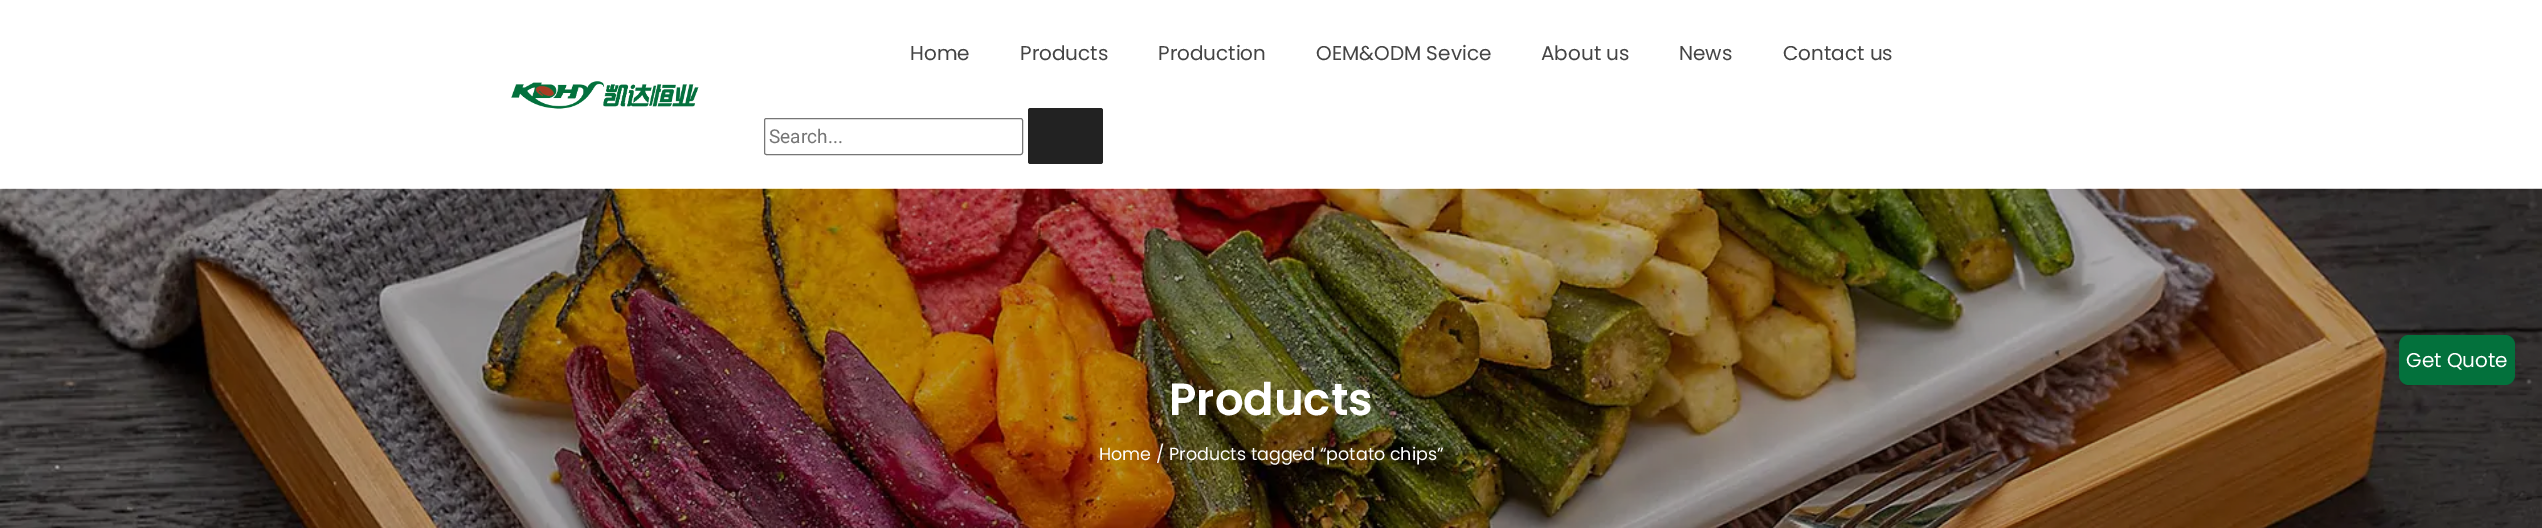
%!PS
<< /PageSize [2542 528] >> setpagedevice
/rgb { 3 { 255 div 3 1 roll } repeat setrgbcolor } def
/font { [ exch dup neg 0 0 3 -1 roll 0 0 ] selectfont } def
/roundrect { 5 dict begin { /r /h /w /y /x } { exch def } forall
  x r add y moveto x w add y 2 copy h add r arct x w add y h add x 1 index r arct
  x y h add x y r arct x y 2 copy exch w add exch r arct closepath end } def
/picture { 5 dict begin { /h /w /y /x /name } { exch def } forall
  gsave x y translate w h scale
  w h 8 [w 0 0 h 0 0] name (r) file false 3 colorimage grestore end } def
0 528 translate 1 -1 scale
4 setmiterlimit
255 255 255 rgb
0 0 2542 528 rectfill
(img/1.rgb) 511 81 188 28 picture
118 118 118 rgb
764.5 118.5 258 36 2 roundrect stroke
34 34 34 rgb
1028 108 75 56 2.5 roundrect fill
(img/2.rgb) 0 188 2542 340 picture
3 113 60 rgb
2399 335 116 50 10 roundrect fill
/Poppins-Regular 20 font
68 68 68 rgb
[
  [(Home) 910 60]
  [(Products) 1020 60]
  [(Production) 1158 60]
  [(OEM&ODM Sevice) 1316 60]
  [(About us) 1541 60]
  [(News) 1679 60]
  [(Contact us) 1783 60]
] { aload pop moveto show } forall
/Roboto-Regular 19 font
117 117 117 rgb
769 143 moveto (Search...) show
/Poppins-SemiBold 45 font
255 255 255 rgb
1169 415 moveto (Products) show
/Poppins-Regular 17.5 font
1099 460 moveto (Home / Products tagged “potato chips”) show
/Poppins-Regular 20 font
2406 367 moveto (Get Quote) show
showpage
